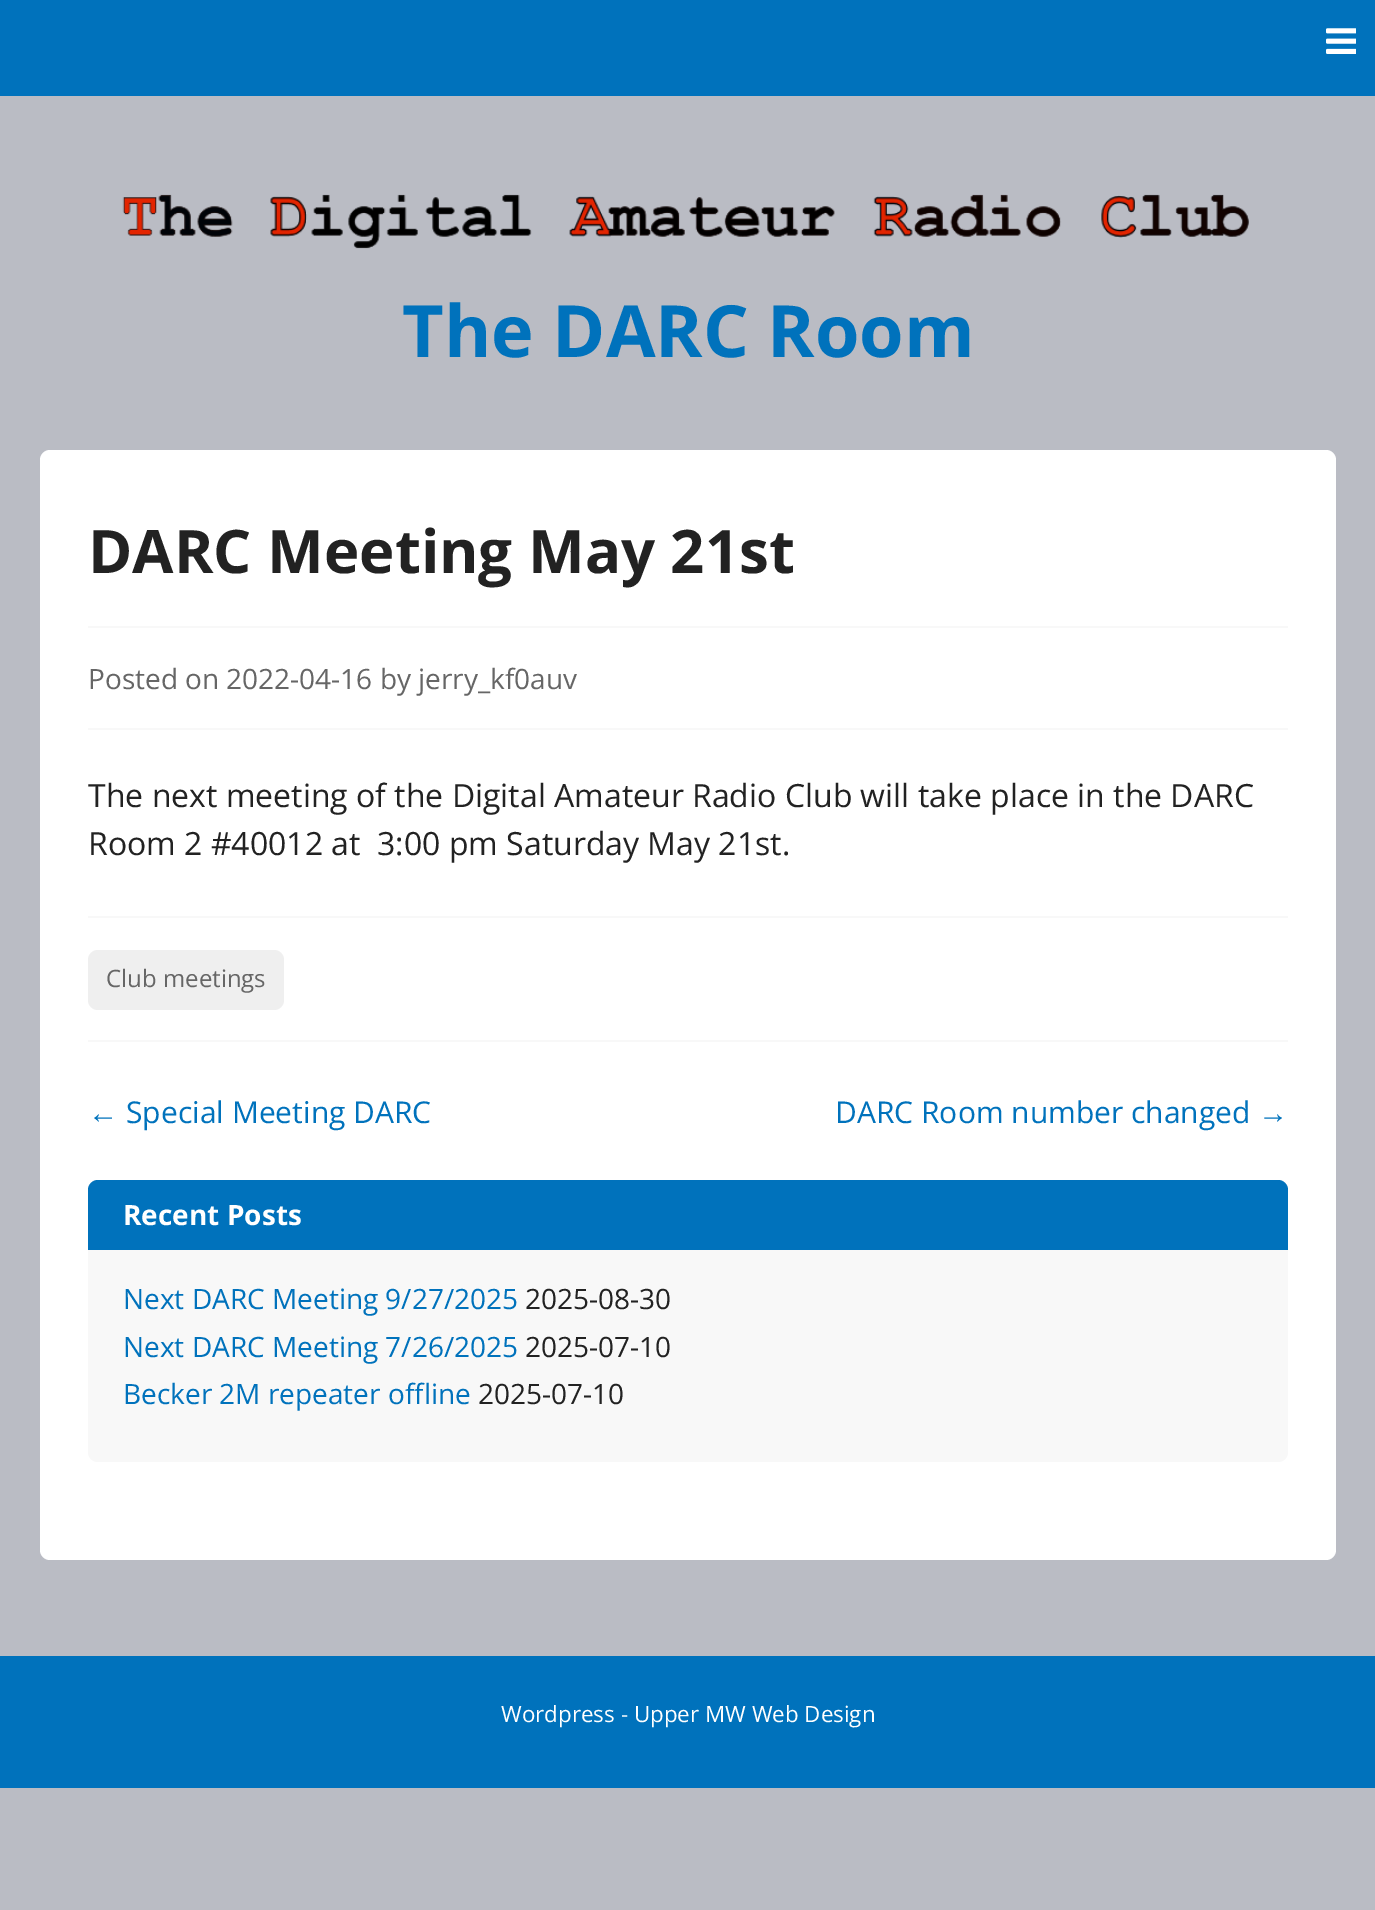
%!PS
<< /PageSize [1375 1910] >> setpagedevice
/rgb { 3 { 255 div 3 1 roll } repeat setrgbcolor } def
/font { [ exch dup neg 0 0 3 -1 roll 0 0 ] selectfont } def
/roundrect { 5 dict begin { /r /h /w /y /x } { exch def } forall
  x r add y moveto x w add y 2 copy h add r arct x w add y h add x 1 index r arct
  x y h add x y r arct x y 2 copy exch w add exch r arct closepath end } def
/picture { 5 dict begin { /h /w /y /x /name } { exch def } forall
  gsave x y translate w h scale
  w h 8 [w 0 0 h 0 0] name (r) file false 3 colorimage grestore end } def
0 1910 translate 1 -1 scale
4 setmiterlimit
186 188 196 rgb
0 0 1375 1910 rectfill
0 114 188 rgb
0 0 1375 96 rectfill
(img/1.rgb) 1326 28 30 26 picture
(img/2.rgb) 122 194 1127 55 picture
255 255 255 rgb
40 450 1296 1110 10 roundrect fill
[
  [88 626 1200 2 248 248 248]
  [88 728 1200 2 248 248 248]
  [88 916 1200 2 248 248 248]
  [88 1040 1200 2 248 248 248]
] { aload pop rgb rectfill } forall
239 239 239 rgb
88 950 196 60 10 roundrect fill
248 248 248 rgb
88 1180 1200 282 10 roundrect fill
0 114 188 rgb
98 1180 moveto 1278 1180 lineto 1283.5 1180 1288 1184.5 1288 1190 curveto 1288 1250 lineto 88 1250 lineto 88 1190 lineto 88 1184.5 92.5 1180 98 1180 curveto closepath fill
0 1656 1375 132 rectfill
/OpenSans-Bold 72 font
402 357 moveto (The DARC Room) show
/OpenSans-Bold 60 font
34 34 34 rgb
88 573 moveto (DARC Meeting May 21st) show
/OpenSans-Regular 28 font
102 102 102 rgb
88 689 moveto (Posted on 2022-04-16 by jerry_kf0auv) show
/OpenSans-Regular 32 font
34 34 34 rgb
88 807 moveto (The next meeting of the Digital Amateur Radio Club will take place in the DARC) show
88 855 moveto (Room 2 #40012 at  3:00 pm Saturday May 21st.) show
/OpenSans-Regular 24 font
102 102 102 rgb
106 987 moveto (Club meetings) show
/LiberationSans-Regular 30 font
0 114 188 rgb
88 1123 moveto (←) show
/OpenSans-Regular 30 font
126 1123 moveto (Special Meeting DARC) show
835 1123 moveto (DARC Room number changed) show
/LiberationSans-Regular 30 font
1258 1123 moveto (→) show
/OpenSans-Bold 28 font
255 255 255 rgb
123 1225 moveto (Recent Posts) show
/OpenSans-Regular 28 font
0 114 188 rgb
123 1309 moveto (Next DARC Meeting 9/27/2025) show
34 34 34 rgb
525 1309 moveto (2025-08-30) show
0 114 188 rgb
123 1357 moveto (Next DARC Meeting 7/26/2025) show
34 34 34 rgb
525 1357 moveto (2025-07-10) show
0 114 188 rgb
123 1404 moveto (Becker 2M repeater offline) show
34 34 34 rgb
478 1404 moveto (2025-07-10) show
/OpenSans-Regular 22.4 font
255 255 255 rgb
501 1722 moveto (Wordpress - Upper MW Web Design) show
showpage
